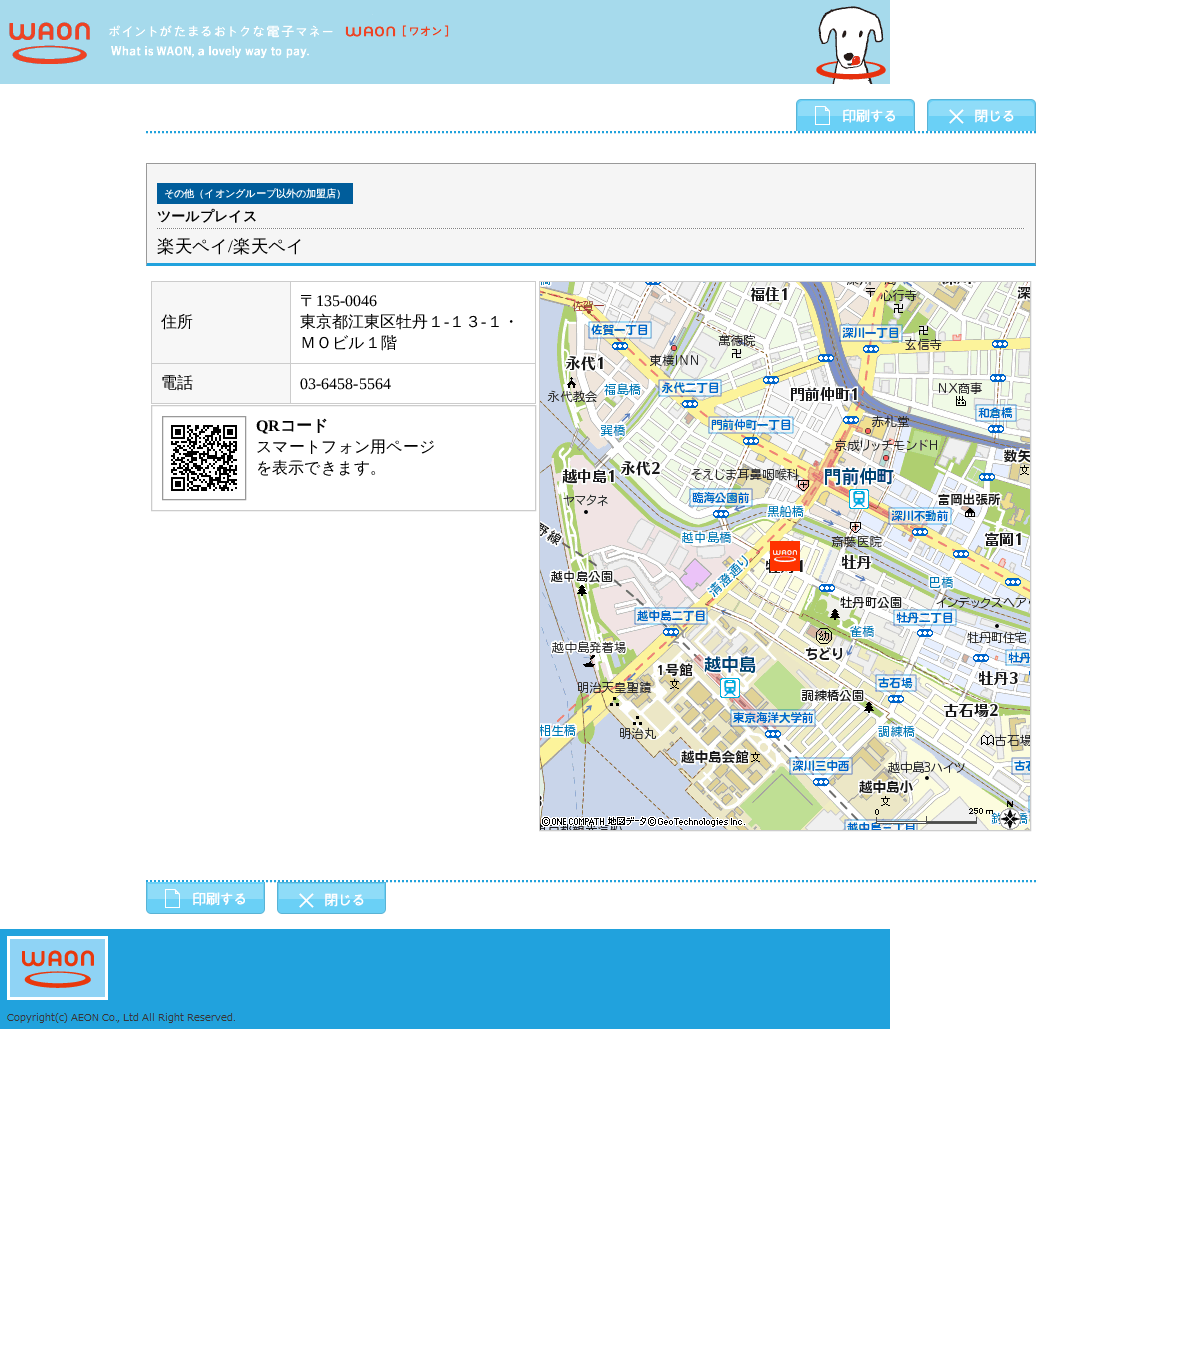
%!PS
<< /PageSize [1182 1366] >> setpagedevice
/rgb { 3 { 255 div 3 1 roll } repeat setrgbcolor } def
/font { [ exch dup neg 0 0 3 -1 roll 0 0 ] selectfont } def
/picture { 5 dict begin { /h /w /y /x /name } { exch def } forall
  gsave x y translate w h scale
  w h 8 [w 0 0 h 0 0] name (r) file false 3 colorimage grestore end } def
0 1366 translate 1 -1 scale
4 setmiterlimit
255 255 255 rgb
0 0 1182 1366 rectfill
(img/1.rgb) 0 0 890 84 picture
33 162 220 rgb
2 setlinewidth
[2 2] 0 setdash
146 132 moveto 1036 132 lineto stroke
(img/2.rgb) 796 99 119 32 picture
(img/3.rgb) 927 99 109 32 picture
245 245 245 rgb
146 178 890 88 rectfill
(img/4.rgb) 146 163 890 15 picture
153 153 153 rgb
1036 178 moveto 1036 266 lineto 1035 263 lineto 1035 178 lineto closepath fill
33 162 221 rgb
1036 266 moveto 146 266 lineto 147 263 lineto 1035 263 lineto closepath fill
153 153 153 rgb
146 266 moveto 146 178 lineto 147 178 lineto 147 263 lineto closepath fill
(img/5.rgb) 157 228 868 1 picture
[
  [157 183 196 21 0 93 155]
  [151 281 385 1 204 204 204]
  [535 281 1 123 204 204 204]
  [152 282 138 81 247 247 247]
  [290 403 246 1 204 204 204]
  [290 363 1 41 204 204 204]
  [290 363 246 1 204 204 204]
  [290 281 1 83 204 204 204]
  [151 403 140 1 204 204 204]
  [151 363 1 41 204 204 204]
  [151 363 140 1 204 204 204]
  [151 281 1 83 204 204 204]
  [152 364 138 39 247 247 247]
] { aload pop rgb rectfill } forall
204 204 204 rgb
1 setlinewidth
[] 0 setdash
151.5 405.5 384 105 rectstroke
153 153 153 rgb
162.5 416.5 83 83 rectstroke
(img/6.rgb) 171 425 66 66 picture
204 204 204 rgb
539.5 281.5 491 549 rectstroke
(img/7.rgb) 540 282 490 548 picture
33 162 220 rgb
2 setlinewidth
[2 2] 0 setdash
146 881 moveto 1036 881 lineto stroke
(img/8.rgb) 146 882 119 32 picture
(img/9.rgb) 277 882 109 32 picture
(img/10.rgb) 0 929 890 100 picture
/WenQuanYiZenHei-Bold 10 font
255 255 255 rgb
164 197 moveto (その他（イオングループ以外の加盟店）) show
/WenQuanYiZenHei-Bold 14 font
0 0 0 rgb
157 221 moveto (ツールプレイス) show
/WenQuanYiZenHei-Medium 17.5 font
157 252 moveto (楽天ペイ) show
/LiberationSerif-Regular 17.5 font
228 252 moveto (/) show
/WenQuanYiZenHei-Medium 17.5 font
233 252 moveto (楽天ペイ) show
/WenQuanYiZenHei-Medium 16 font
161 327 moveto (住所) show
300 306 moveto (〒) show
/LiberationSerif-Regular 16 font
316 306 moveto (135-0046) show
/WenQuanYiZenHei-Medium 16 font
300 327 moveto (東京都江東区牡丹１) show
/LiberationSerif-Regular 16 font
444 327 moveto (‐) show
/WenQuanYiZenHei-Medium 16 font
449 327 moveto (１３) show
/LiberationSerif-Regular 16 font
481 327 moveto (‐) show
/WenQuanYiZenHei-Medium 16 font
[
  [(１・) 487 327]
  [(ＭＯビル１階) 300 348]
  [(電話) 161 388]
] { aload pop moveto show } forall
/LiberationSerif-Regular 16 font
300 389 moveto (03-6458-5564) show
/LiberationSerif-Bold 16 font
256 431 moveto (QR) show
/WenQuanYiZenHei-Bold 16 font
280 431 moveto (コード) show
/WenQuanYiZenHei-Medium 16 font
256 452 moveto (スマートフォン用ページ) show
256 473 moveto (を表示できます。) show
showpage
